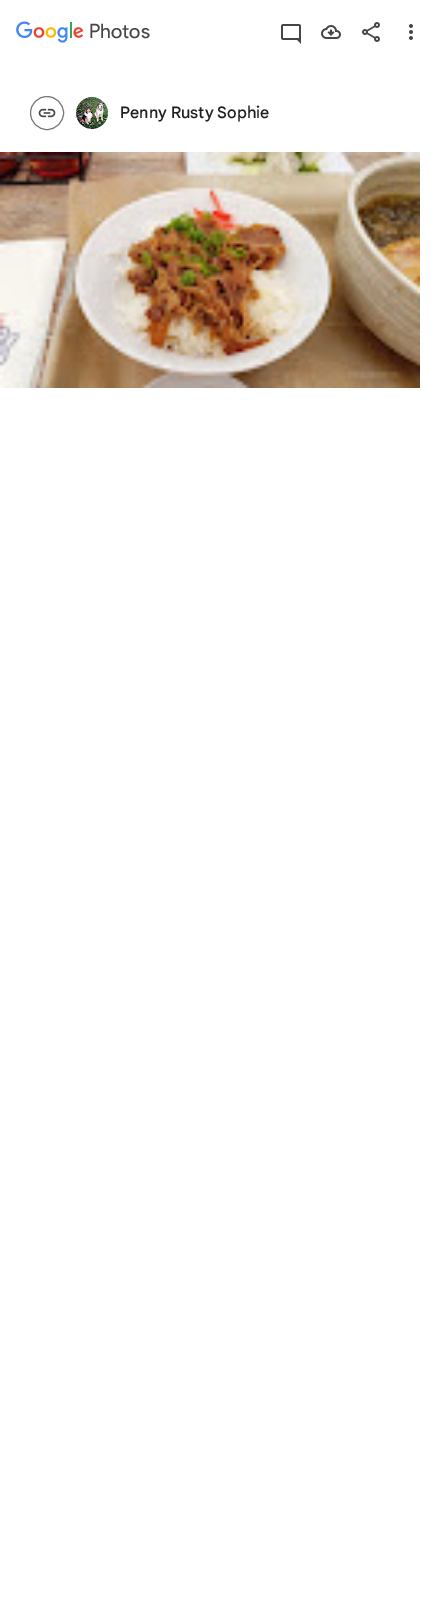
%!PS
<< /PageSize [435 1602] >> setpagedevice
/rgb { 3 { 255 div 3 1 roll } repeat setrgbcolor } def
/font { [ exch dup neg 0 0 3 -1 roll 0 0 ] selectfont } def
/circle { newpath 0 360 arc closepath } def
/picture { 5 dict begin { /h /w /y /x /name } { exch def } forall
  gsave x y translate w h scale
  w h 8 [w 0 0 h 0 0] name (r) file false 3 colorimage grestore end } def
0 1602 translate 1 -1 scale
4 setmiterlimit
255 255 255 rgb
0 0 435 1602 rectfill
(img/1.rgb) 16 21 68 22 picture
(img/2.rgb) 281 24 20 20 picture
(img/3.rgb) 321 25 20 14 picture
(img/4.rgb) 362 22 18 20 picture
(img/5.rgb) 409 24 4 16 picture
116 119 117 rgb
47 113 16.5 circle stroke
(img/6.rgb) 38 108 18 10 picture
(img/7.rgb) 76 97 32 32 picture
(img/8.rgb) 0 152 420 236 picture
/ProductSans-Regular 20 font
68 71 70 rgb
89 38 moveto (Photos) show
/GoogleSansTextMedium-Medium 16 font
31 31 31 rgb
120 118 moveto (Penny Rusty Sophie) show
showpage
